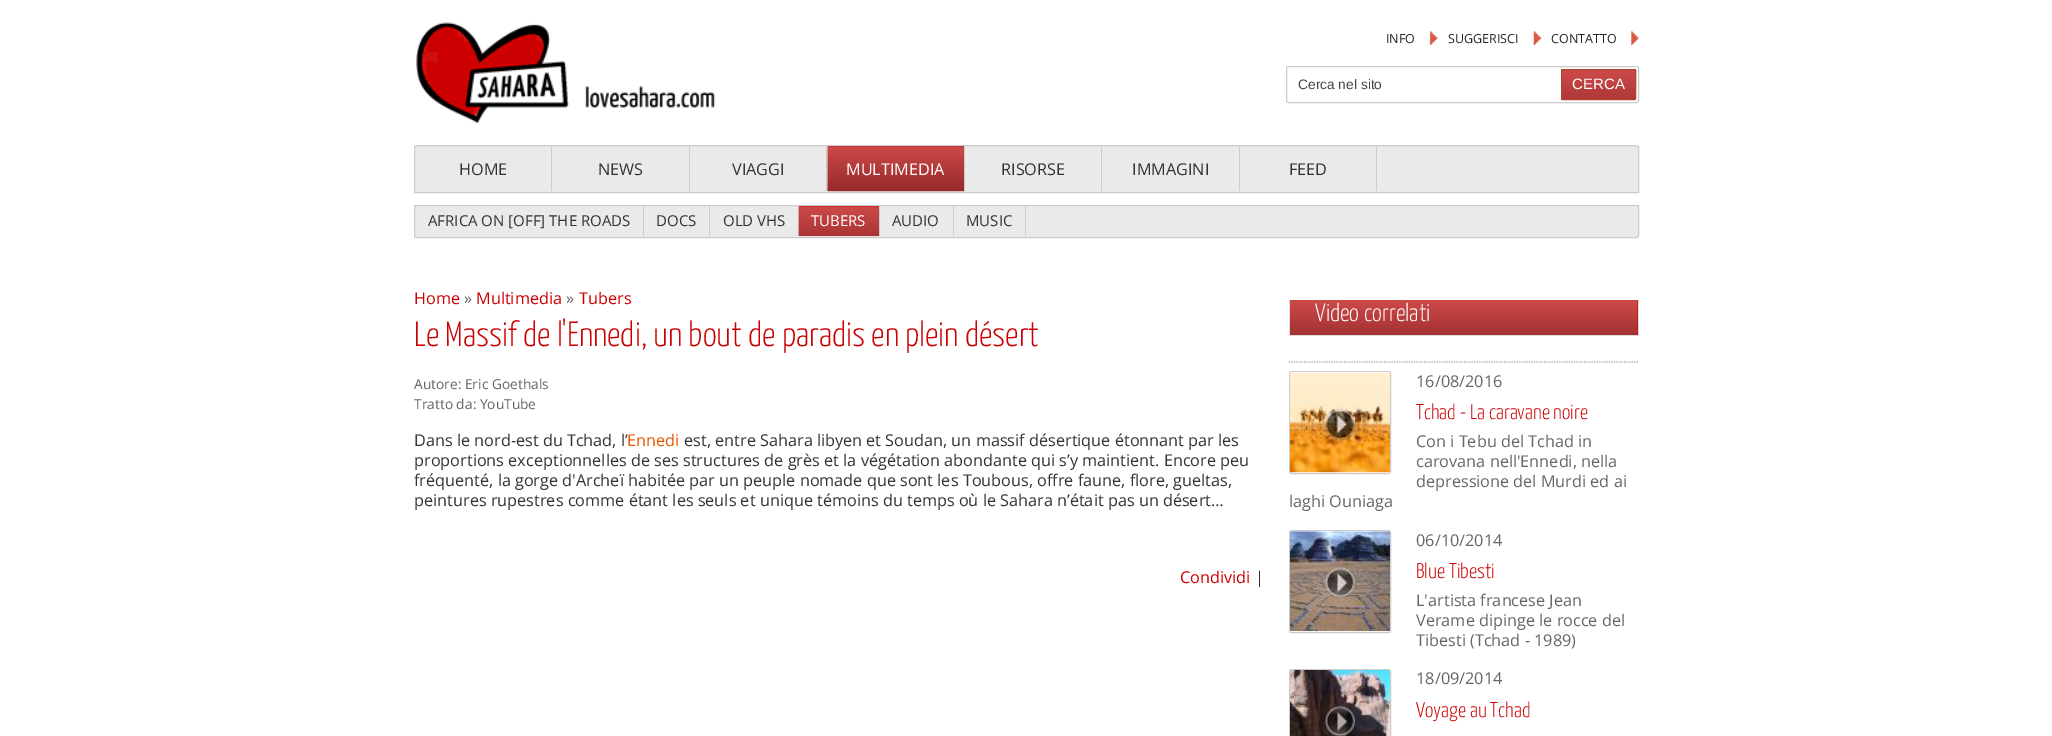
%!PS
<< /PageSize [2052 736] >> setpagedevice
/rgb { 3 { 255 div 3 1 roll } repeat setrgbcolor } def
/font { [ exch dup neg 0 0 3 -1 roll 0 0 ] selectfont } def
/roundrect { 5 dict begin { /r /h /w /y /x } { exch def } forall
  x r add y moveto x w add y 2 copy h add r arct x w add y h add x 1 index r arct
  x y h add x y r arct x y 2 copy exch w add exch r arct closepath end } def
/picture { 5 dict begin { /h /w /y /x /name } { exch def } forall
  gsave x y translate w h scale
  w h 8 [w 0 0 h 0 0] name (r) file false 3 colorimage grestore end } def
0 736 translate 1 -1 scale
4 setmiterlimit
255 255 255 rgb
0 0 2052 736 rectfill
(img/1.rgb) 416 22 300 102 picture
(img/2.rgb) 1429 31 9 14 picture
(img/3.rgb) 1533 31 9 14 picture
(img/4.rgb) 1631 31 8 14 picture
204 204 204 rgb
1286.5 66.5 352 36 2 roundrect stroke
(img/5.rgb) 1561 70 76 30 picture
177 70 44 rgb
1561.5 69.5 74 30 0.5 roundrect stroke
234 234 234 rgb
416.5 145.5 moveto 1636.5 145.5 lineto 1637.5 145.5 1638.5 146.5 1638.5 147.5 curveto 1638.5 192.5 lineto 414.5 192.5 lineto 414.5 147.5 lineto 414.5 146.5 415.5 145.5 416.5 145.5 curveto closepath gsave fill grestore
204 204 204 rgb
stroke
[
  [551 146 1 45 204 204 204]
  [689 146 1 45 204 204 204]
  [826 146 1 45 204 204 204]
  [828 146 136 1 188 51 51]
] { aload pop rgb rectfill } forall
(img/6.rgb) 827 146 138 46 picture
[
  [964 146 1 45 204 204 204]
  [1101 146 1 45 204 204 204]
  [1239 146 1 45 204 204 204]
  [1376 146 1 45 204 204 204]
] { aload pop rgb rectfill } forall
234 234 234 rgb
414.5 205.5 moveto 1638.5 205.5 lineto 1638.5 235.5 lineto 1638.5 236.5 1637.5 237.5 1636.5 237.5 curveto 416.5 237.5 lineto 415.5 237.5 414.5 236.5 414.5 235.5 curveto closepath gsave fill grestore
204 204 204 rgb
stroke
[
  [643 206 1 30 204 204 204]
  [709 206 1 30 204 204 204]
  [798 206 1 30 204 204 204]
  [799 206 80 1 204 0 0]
] { aload pop rgb rectfill } forall
(img/7.rgb) 798 206 82 31 picture
[
  [879 206 1 30 204 204 204]
  [953 206 1 30 204 204 204]
  [1025 206 1 30 204 204 204]
] { aload pop rgb rectfill } forall
204 0 0 rgb
1289 300 350 36 2.5 roundrect fill
[
  [1638 301 1 34 222 222 222]
  [1290 335 348 1 222 222 222]
  [1289 301 1 34 222 222 222]
] { aload pop rgb rectfill } forall
(img/8.rgb) 1290 300 348 35 picture
170 170 170 rgb
1.2 setlinewidth
[1.25 1.25] 0 setdash
1289 362 moveto 1639 362 lineto stroke
204 204 204 rgb
1 setlinewidth
[] 0 setdash
1289.5 371.5 101 102 2 roundrect stroke
(img/9.rgb) 1290 372 100 101 picture
1289.5 530.5 101 102 2 roundrect stroke
(img/10.rgb) 1290 531 100 101 picture
1289.5 669.5 101 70 2 roundrect stroke
(img/11.rgb) 1290 670 100 66 picture
/OpenSans-Regular 12.5 font
34 34 34 rgb
[
  [(INFO) 1386 43]
  [(SUGGERISCI) 1448 43]
  [(CONTATTO) 1551 43]
] { aload pop moveto show } forall
/LiberationSans-Regular 13.75 font
68 68 68 rgb
1298 89 moveto (Cerca nel sito) show
/LiberationSans-Regular 15 font
255 255 255 rgb
1572 89 moveto (CERCA) show
/OpenSans-Regular 16.25 font
51 51 51 rgb
[
  [(HOME) 459 175]
  [(NEWS) 598 175]
  [(VIAGGI) 732 175]
] { aload pop moveto show } forall
255 255 255 rgb
846 175 moveto (MULTIMEDIA) show
51 51 51 rgb
[
  [(RISORSE) 1001 175]
  [(IMMAGINI) 1132 175]
  [(FEED) 1289 175]
] { aload pop moveto show } forall
/OpenSans-Regular 15 font
[
  [(AFRICA ON [OFF] THE ROADS) 428 226]
  [(DOCS) 656 226]
  [(OLD VHS) 723 226]
] { aload pop moveto show } forall
255 255 255 rgb
811 226 moveto (TUBERS) show
51 51 51 rgb
892 226 moveto (AUDIO) show
966 226 moveto (MUSIC) show
/OpenSans-Regular 16.25 font
204 0 0 rgb
414 304 moveto (Home) show
102 102 102 rgb
464 304 moveto (») show
204 0 0 rgb
476 304 moveto (Multimedia) show
102 102 102 rgb
566 304 moveto (») show
204 0 0 rgb
579 304 moveto (Tubers) show
/YanoneKaffeesatz-Light 35 font
414 346 moveto (Le Massif de l'Ennedi, un bout de paradis en plein désert) show
/OpenSans-Regular 13.75 font
102 102 102 rgb
414 389 moveto (Autore: Eric Goethals) show
414 409 moveto (Tratto da: YouTube) show
/OpenSans-Regular 16.25 font
51 51 51 rgb
414 446 moveto (Dans le nord-est du Tchad, l’) show
231 87 0 rgb
627 446 moveto (Ennedi) show
51 51 51 rgb
[
  [(est, entre Sahara libyen et Soudan, un massif désertique étonnant par les) 684 446]
  [(proportions exceptionnelles de ses structures de grès et la végétation abondante qui s’y maintient. Encore peu) 414 466]
  [(fréquenté, la gorge d'Archeï habitée par un peuple nomade que sont les Toubous, offre faune, flore, gueltas,) 414 486]
  [(peintures rupestres comme étant les seuls et unique témoins du temps où le Sahara n’était pas un désert…) 414 506]
] { aload pop moveto show } forall
204 0 0 rgb
1180 583 moveto (Condividi) show
51 51 51 rgb
1255 583 moveto (|) show
/YanoneKaffeesatz-Light 25 font
255 255 255 rgb
1315 321 moveto (Video correlati) show
/OpenSans-Regular 16.25 font
102 102 102 rgb
1416 387 moveto (16/08/2016) show
/YanoneKaffeesatz-Light 21.25 font
204 0 0 rgb
1416 419 moveto (Tchad - La caravane noire) show
/OpenSans-Regular 16.25 font
102 102 102 rgb
[
  [(Con i Tebu del Tchad in) 1416 447]
  [(carovana nell'Ennedi, nella) 1416 467]
  [(depressione del Murdi ed ai) 1416 487]
  [(laghi Ouniaga) 1289 507]
  [(06/10/2014) 1416 546]
] { aload pop moveto show } forall
/YanoneKaffeesatz-Light 21.25 font
204 0 0 rgb
1416 578 moveto (Blue Tibesti) show
/OpenSans-Regular 16.25 font
102 102 102 rgb
[
  [(L'artista francese Jean) 1416 606]
  [(Verame dipinge le rocce del) 1416 626]
  [(Tibesti \(Tchad - 1989\)) 1416 646]
  [(18/09/2014) 1416 684]
] { aload pop moveto show } forall
/YanoneKaffeesatz-Light 21.25 font
204 0 0 rgb
1416 717 moveto (Voyage au Tchad) show
showpage
